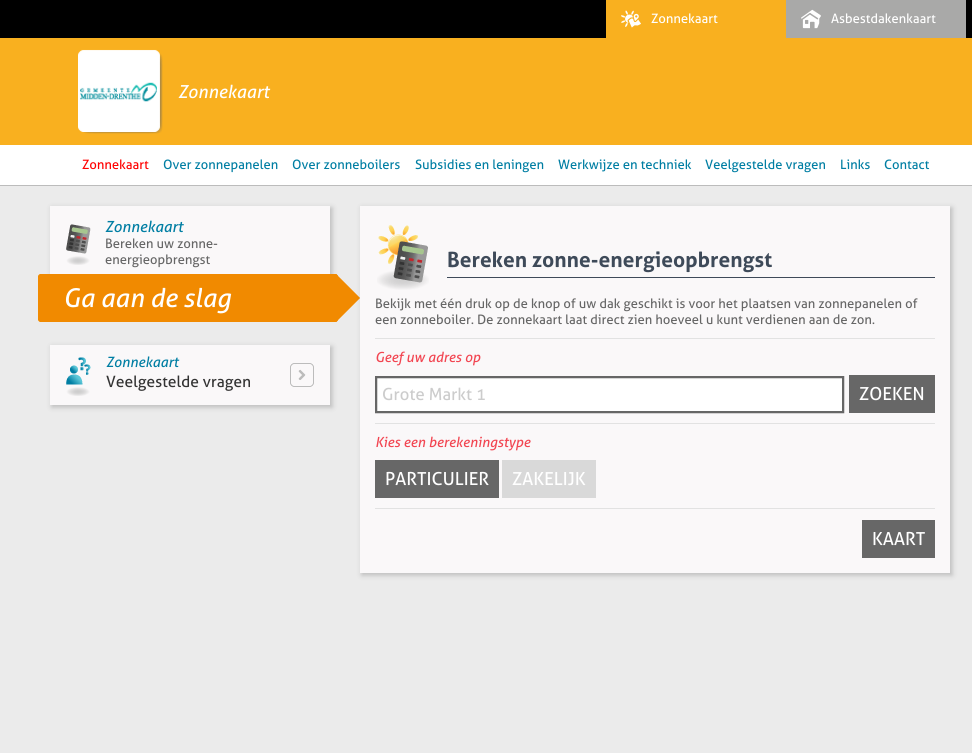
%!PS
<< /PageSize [972 753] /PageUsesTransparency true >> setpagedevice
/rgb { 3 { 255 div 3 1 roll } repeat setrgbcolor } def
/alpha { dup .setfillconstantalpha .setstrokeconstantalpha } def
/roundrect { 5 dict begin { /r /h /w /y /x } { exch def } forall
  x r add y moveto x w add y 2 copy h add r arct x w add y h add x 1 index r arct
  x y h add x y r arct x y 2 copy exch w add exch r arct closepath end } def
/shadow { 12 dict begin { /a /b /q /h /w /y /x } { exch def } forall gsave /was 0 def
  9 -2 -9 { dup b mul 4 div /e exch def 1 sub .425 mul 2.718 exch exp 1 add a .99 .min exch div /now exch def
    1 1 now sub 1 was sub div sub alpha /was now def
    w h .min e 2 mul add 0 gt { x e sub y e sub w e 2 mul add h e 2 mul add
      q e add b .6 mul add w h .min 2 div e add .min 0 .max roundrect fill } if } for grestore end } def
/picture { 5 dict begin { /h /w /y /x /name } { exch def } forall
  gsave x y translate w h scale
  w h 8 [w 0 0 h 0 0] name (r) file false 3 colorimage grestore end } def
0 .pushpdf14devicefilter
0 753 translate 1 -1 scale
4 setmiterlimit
235 235 235 rgb
0 0 972 753 rectfill
0 0 0 rgb
0 0 972 38 rectfill
249 176 31 rgb
606 0 180 38 rectfill
(img/1.rgb) 621 10 20 18 picture
(img/2.rgb) 651 13 67 11 picture
169 169 168 rgb
786 0 180 38 rectfill
(img/3.rgb) 801 9 20 20 picture
(img/4.rgb) 831 13 105 11 picture
249 176 31 rgb
0 38 972 107 rectfill
(img/5.rgb) 78 49 85 85 picture
(img/6.rgb) 178 84 93 15 picture
255 255 255 rgb
0 145 972 40 rectfill
188 188 188 rgb
0 185 972 1 rectfill
(img/7.rgb) 82 159 67 11 picture
(img/8.rgb) 163 159 115 14 picture
(img/9.rgb) 292 159 108 11 picture
(img/10.rgb) 415 159 129 14 picture
(img/11.rgb) 558 159 134 13 picture
(img/12.rgb) 705 159 120 14 picture
(img/13.rgb) 841 159 29 11 picture
(img/14.rgb) 884 159 46 11 picture
0 0 0 rgb
52 208 280 78 0 2.5 0.2 shadow
250 248 249 rgb
50 206 280 68 rectfill
(img/15.rgb) 66 224 25 41 picture
(img/16.rgb) 105 220 79 13 picture
(img/17.rgb) 106 238 112 11 picture
(img/18.rgb) 105 254 105 14 picture
241 138 0 rgb
38 274 300 48 3 roundrect fill
(img/19.rgb) 65 287 167 27 picture
336 322 moveto 336 274 lineto 360 298 lineto closepath fill
0 0 0 rgb
52 347 280 60 0 2.5 0.2 shadow
250 248 249 rgb
50 345 280 60 rectfill
(img/20.rgb) 290 363 24 24 picture
(img/21.rgb) 66 357 25 39 picture
(img/22.rgb) 106 356 74 12 picture
(img/23.rgb) 106 375 144 16 picture
0 0 0 rgb
362 208 590 367 0 2.5 0.2 shadow
250 248 249 rgb
360 206 590 367 rectfill
(img/24.rgb) 377 224 52 66 picture
62 74 89 rgb
447 277 488 1 rectfill
(img/25.rgb) 448 251 324 22 picture
(img/26.rgb) 376 298 542 14 picture
(img/27.rgb) 375 314 500 11 picture
226 226 226 rgb
375 338 560 1 rectfill
(img/28.rgb) 376 351 105 15 picture
255 255 255 rgb
376 377 moveto 843 377 lineto 843 412 lineto 376 412 lineto closepath gsave fill grestore
102 102 102 rgb
2 setlinewidth
stroke
(img/29.rgb) 383 387 102 14 picture
103 103 103 rgb
849 375 86 38 rectfill
(img/30.rgb) 859 386 65 15 picture
226 226 226 rgb
375 423 560 1 rectfill
(img/31.rgb) 376 436 155 15 picture
103 103 103 rgb
375 460 124 38 rectfill
(img/32.rgb) 386 471 103 15 picture
217 217 217 rgb
502 460 94 38 rectfill
(img/33.rgb) 512 472 74 14 picture
226 226 226 rgb
375 508 560 1 rectfill
103 103 103 rgb
862 520 73 38 rectfill
(img/34.rgb) 873 531 52 15 picture
.poppdf14devicefilter showpage
